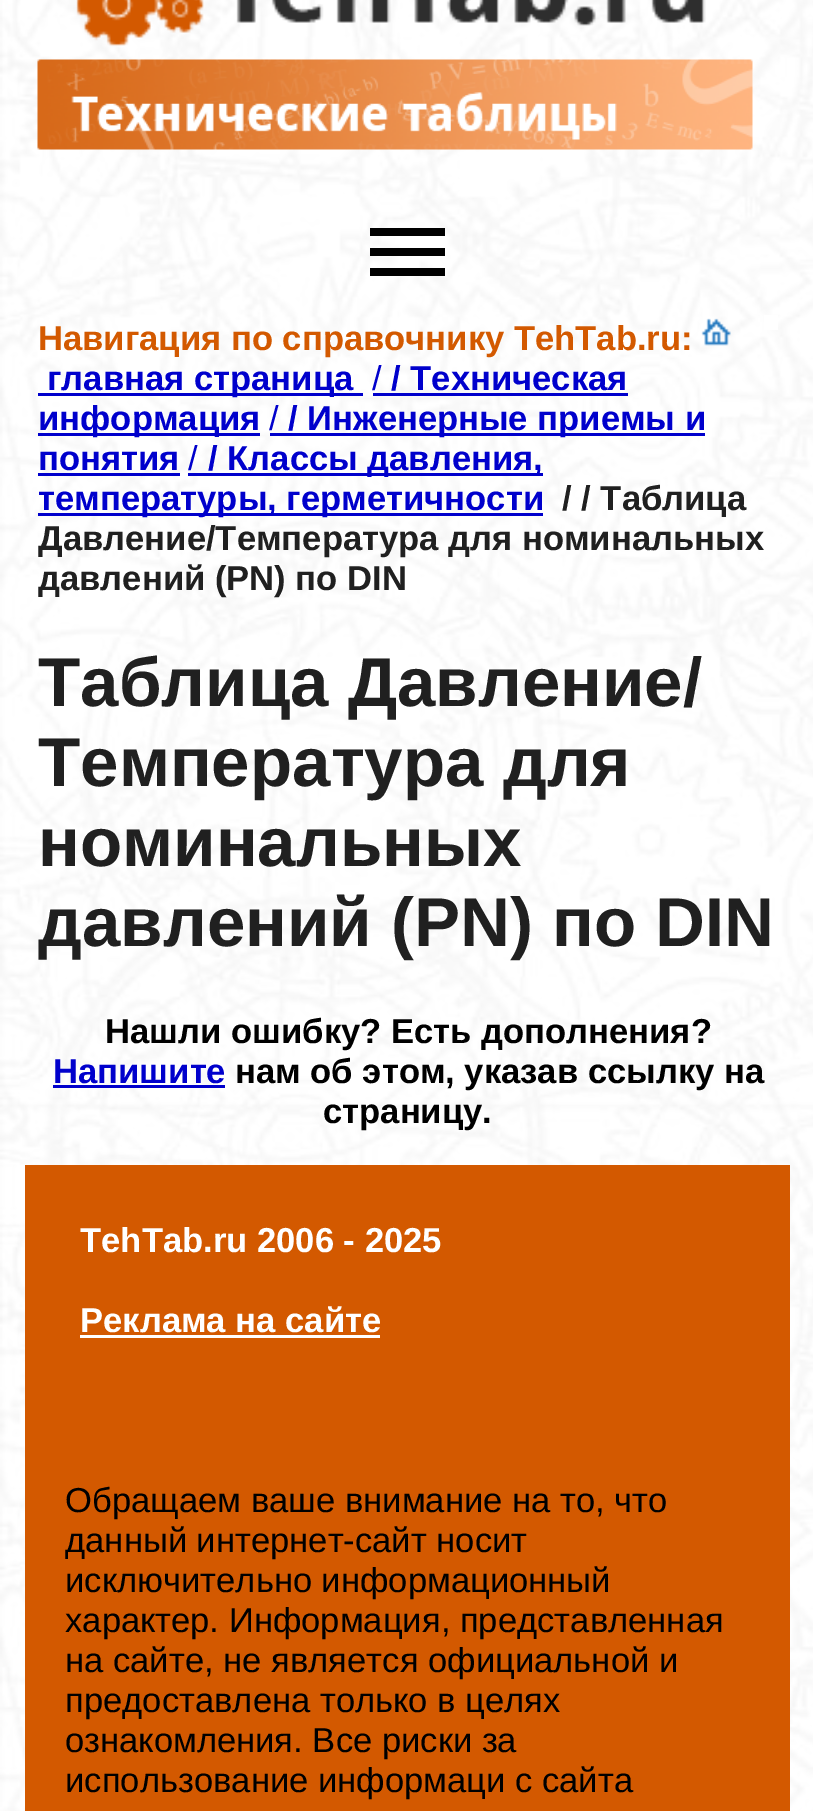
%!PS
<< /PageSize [813 1811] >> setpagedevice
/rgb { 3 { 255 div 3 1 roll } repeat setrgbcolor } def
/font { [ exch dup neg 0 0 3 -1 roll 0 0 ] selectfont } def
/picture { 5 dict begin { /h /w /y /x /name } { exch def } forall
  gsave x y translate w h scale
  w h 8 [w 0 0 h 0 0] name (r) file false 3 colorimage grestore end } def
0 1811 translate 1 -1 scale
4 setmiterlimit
255 255 255 rgb
0 0 813 1811 rectfill
(img/1.rgb) 0 0 813 1811 picture
(img/2.rgb) 76 0 630 46 picture
(img/3.rgb) 37 59 716 91 picture
[
  [370 248 75 8 0 0 0]
  [370 228 75 8 0 0 0]
  [370 268 75 8 0 0 0]
] { aload pop rgb rectfill } forall
(img/4.rgb) 701 318 30 28 picture
[
  [764 315 14 15 255 255 255]
  [38 393 325 3 0 0 204]
  [373 393 255 3 0 0 204]
  [38 433 222 3 0 0 204]
  [270 433 435 3 0 0 204]
  [38 473 142 3 0 0 204]
  [188 473 355 3 0 0 204]
  [38 513 505 3 0 0 204]
  [53 1085 172 3 0 0 204]
  [25 1165 765 646 211 89 0]
  [80 1335 300 3 255 255 255]
] { aload pop rgb rectfill } forall
/LiberationSans-Bold 34.6 font
211 89 0 rgb
38 350 moveto (Навигация по справочнику TehTab.ru:) show
0 0 204 rgb
47 390 moveto (главная страница) show
/LiberationSans-Regular 34.6 font
372 390 moveto (/) show
/LiberationSans-Bold 34.6 font
391 390 moveto (/ Техническая) show
38 430 moveto (информация) show
/LiberationSans-Regular 34.6 font
269 430 moveto (/) show
/LiberationSans-Bold 34.6 font
288 430 moveto (/ Инженерные приемы и) show
38 470 moveto (понятия) show
/LiberationSans-Regular 34.6 font
188 470 moveto (/) show
/LiberationSans-Bold 34.6 font
208 470 moveto (/ Классы давления,) show
38 510 moveto (температуры, герметичности) show
32 32 32 rgb
[
  [(/ / Таблица) 562 510]
  [(Давление/Температура для номинальных) 38 550]
  [(давлений \(PN\) по DIN) 38 590]
] { aload pop moveto show } forall
/LiberationSans-Bold 69.1 font
[
  [(Таблица Давление/) 38 706]
  [(Температура для) 38 786]
  [(номинальных) 38 866]
  [(давлений \(PN\) по DIN) 38 946]
] { aload pop moveto show } forall
/LiberationSans-Bold 34.6 font
0 0 0 rgb
105 1043 moveto (Нашли ошибку? Есть дополнения?) show
0 0 204 rgb
53 1083 moveto (Напишите) show
0 0 0 rgb
235 1083 moveto (нам об этом, указав ссылку на) show
323 1123 moveto (страницу.) show
255 255 255 rgb
80 1252 moveto (TehTab.ru 2006 - 2025) show
80 1332 moveto (Реклама на сайте) show
/LiberationSans-Regular 34.6 font
0 0 0 rgb
[
  [(Обращаем ваше внимание на то, что) 65 1512]
  [(данный интернет-сайт носит) 65 1552]
  [(исключительно информационный) 65 1592]
  [(характер. Информация, представленная) 65 1632]
  [(на сайте, не является официальной и) 65 1672]
  [(предоставлена только в целях) 65 1712]
  [(ознакомления. Все риски за) 65 1752]
  [(использование информаци с сайта) 65 1792]
] { aload pop moveto show } forall
showpage
